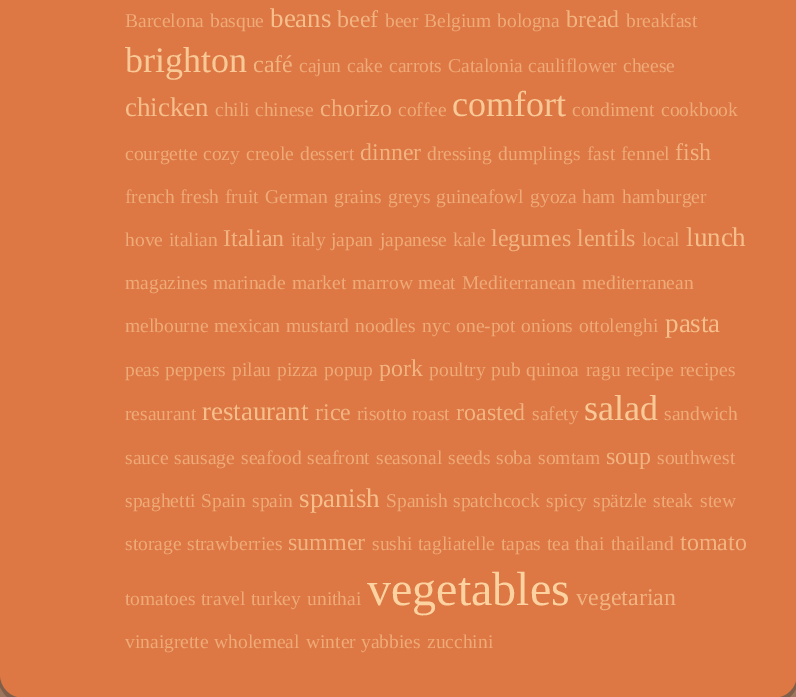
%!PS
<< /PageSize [796 697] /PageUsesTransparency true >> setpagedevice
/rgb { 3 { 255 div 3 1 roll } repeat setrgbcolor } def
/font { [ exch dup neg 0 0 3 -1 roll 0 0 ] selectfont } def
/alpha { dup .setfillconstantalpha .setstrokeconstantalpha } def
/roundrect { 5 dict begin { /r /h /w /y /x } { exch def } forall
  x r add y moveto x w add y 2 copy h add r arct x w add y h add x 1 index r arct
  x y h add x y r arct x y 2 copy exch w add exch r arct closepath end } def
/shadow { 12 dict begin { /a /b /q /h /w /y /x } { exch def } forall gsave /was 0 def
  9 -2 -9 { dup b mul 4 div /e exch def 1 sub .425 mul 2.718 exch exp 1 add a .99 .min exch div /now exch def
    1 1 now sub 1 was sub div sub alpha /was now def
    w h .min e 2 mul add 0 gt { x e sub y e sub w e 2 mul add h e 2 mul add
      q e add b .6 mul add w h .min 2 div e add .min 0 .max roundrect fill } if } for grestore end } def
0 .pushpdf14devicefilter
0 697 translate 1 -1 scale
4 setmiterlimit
204 153 119 rgb
0 0 796 697 rectfill
0 0 0 rgb
0 -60 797 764 24 12 0.75 shadow
221 119 68 rgb
0 -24 moveto 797 -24 lineto 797 674 lineto 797 687.5 786.5 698 773 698 curveto 24 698 lineto 10.5 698 0 687.5 0 674 curveto closepath fill
/LiberationSerif-Regular 19.5 font
238 170 119 rgb
125 27 moveto (Barcelona) show
210 27 moveto (basque) show
/LiberationSerif-Regular 27 font
245 190 139 rgb
270 27 moveto (beans) show
/LiberationSerif-Regular 24 font
241 180 129 rgb
337 27 moveto (beef) show
/LiberationSerif-Regular 19.5 font
238 170 119 rgb
[
  [(beer) 385 27]
  [(Belgium) 424 27]
  [(bologna) 497 27]
] { aload pop moveto show } forall
/LiberationSerif-Regular 24 font
241 180 129 rgb
566 27 moveto (bread) show
/LiberationSerif-Regular 19.5 font
238 170 119 rgb
626 27 moveto (breakfast) show
/LiberationSerif-Regular 36 font
248 201 150 rgb
125 72 moveto (brighton) show
/LiberationSerif-Regular 24 font
241 180 129 rgb
253 72 moveto (café) show
/LiberationSerif-Regular 19.5 font
238 170 119 rgb
[
  [(cajun) 299 72]
  [(cake) 347 72]
  [(carrots) 389 72]
  [(Catalonia) 448 72]
  [(cauliflower) 528 72]
  [(cheese) 623 72]
] { aload pop moveto show } forall
/LiberationSerif-Regular 27 font
245 190 139 rgb
125 116 moveto (chicken) show
/LiberationSerif-Regular 19.5 font
238 170 119 rgb
215 116 moveto (chili) show
255 116 moveto (chinese) show
/LiberationSerif-Regular 24 font
241 180 129 rgb
320 116 moveto (chorizo) show
/LiberationSerif-Regular 19.5 font
238 170 119 rgb
398 116 moveto (coffee) show
/LiberationSerif-Regular 36 font
248 201 150 rgb
452 116 moveto (comfort) show
/LiberationSerif-Regular 19.5 font
238 170 119 rgb
[
  [(condiment) 572 116]
  [(cookbook) 661 116]
  [(courgette) 125 160]
  [(cozy) 203 160]
  [(creole) 246 160]
  [(dessert) 300 160]
] { aload pop moveto show } forall
/LiberationSerif-Regular 24 font
241 180 129 rgb
360 160 moveto (dinner) show
/LiberationSerif-Regular 19.5 font
238 170 119 rgb
[
  [(dressing) 427 160]
  [(dumplings) 498 160]
  [(fast) 587 160]
  [(fennel) 621 160]
] { aload pop moveto show } forall
/LiberationSerif-Regular 24 font
241 180 129 rgb
675 160 moveto (fish) show
/LiberationSerif-Regular 19.5 font
238 170 119 rgb
[
  [(french) 125 203]
  [(fresh) 180 203]
  [(fruit) 225 203]
  [(German) 265 203]
  [(grains) 334 203]
  [(greys) 388 203]
  [(guineafowl) 436 203]
  [(gyoza) 530 203]
  [(ham) 582 203]
  [(hamburger) 622 203]
  [(hove) 125 246]
  [(italian) 169 246]
] { aload pop moveto show } forall
/LiberationSerif-Regular 24 font
241 180 129 rgb
223 246 moveto (Italian) show
/LiberationSerif-Regular 19.5 font
238 170 119 rgb
[
  [(italy) 291 246]
  [(japan) 331 246]
  [(japanese) 380 246]
  [(kale) 453 246]
] { aload pop moveto show } forall
/LiberationSerif-Regular 24 font
241 180 129 rgb
491 246 moveto (legumes lentils) show
/LiberationSerif-Regular 19.5 font
238 170 119 rgb
642 246 moveto (local) show
/LiberationSerif-Regular 27 font
245 190 139 rgb
686 246 moveto (lunch) show
/LiberationSerif-Regular 19.5 font
238 170 119 rgb
[
  [(magazines) 125 289]
  [(marinade) 213 289]
  [(market) 292 289]
  [(marrow) 352 289]
  [(meat) 418 289]
  [(Mediterranean) 462 289]
  [(mediterranean) 582 289]
  [(melbourne) 125 332]
  [(mexican) 214 332]
  [(mustard) 286 332]
  [(noodles) 355 332]
  [(nyc) 422 332]
  [(one-pot) 456 332]
  [(onions) 521 332]
  [(ottolenghi) 579 332]
] { aload pop moveto show } forall
/LiberationSerif-Regular 27 font
245 190 139 rgb
665 332 moveto (pasta) show
/LiberationSerif-Regular 19.5 font
238 170 119 rgb
[
  [(peas) 125 376]
  [(peppers) 165 376]
  [(pilau) 232 376]
  [(pizza) 277 376]
  [(popup) 324 376]
] { aload pop moveto show } forall
/LiberationSerif-Regular 24 font
241 180 129 rgb
379 376 moveto (pork) show
/LiberationSerif-Regular 19.5 font
238 170 119 rgb
[
  [(poultry) 429 376]
  [(pub) 491 376]
  [(quinoa) 526 376]
  [(ragu) 586 376]
  [(recipe) 626 376]
  [(recipes) 680 376]
  [(resaurant) 125 420]
] { aload pop moveto show } forall
/LiberationSerif-Regular 27 font
245 190 139 rgb
202 420 moveto (restaurant) show
/LiberationSerif-Regular 24 font
241 180 129 rgb
315 420 moveto (rice) show
/LiberationSerif-Regular 19.5 font
238 170 119 rgb
357 420 moveto (risotto) show
412 420 moveto (roast) show
/LiberationSerif-Regular 24 font
241 180 129 rgb
456 420 moveto (roasted) show
/LiberationSerif-Regular 19.5 font
238 170 119 rgb
532 420 moveto (safety) show
/LiberationSerif-Regular 36 font
248 201 150 rgb
584 420 moveto (salad) show
/LiberationSerif-Regular 19.5 font
238 170 119 rgb
[
  [(sandwich) 664 420]
  [(sauce) 125 464]
  [(sausage) 174 464]
  [(seafood) 241 464]
  [(seafront) 307 464]
  [(seasonal) 376 464]
  [(seeds) 448 464]
  [(soba) 496 464]
  [(somtam) 538 464]
] { aload pop moveto show } forall
/LiberationSerif-Regular 24 font
241 180 129 rgb
606 464 moveto (soup) show
/LiberationSerif-Regular 19.5 font
238 170 119 rgb
[
  [(southwest) 657 464]
  [(spaghetti) 125 507]
  [(Spain) 201 507]
  [(spain) 252 507]
] { aload pop moveto show } forall
/LiberationSerif-Regular 27 font
245 190 139 rgb
299 507 moveto (spanish) show
/LiberationSerif-Regular 19.5 font
238 170 119 rgb
[
  [(Spanish) 386 507]
  [(spatchcock) 453 507]
  [(spicy) 546 507]
  [(spätzle) 593 507]
  [(steak) 653 507]
  [(stew) 700 507]
  [(storage) 125 550]
  [(strawberries) 187 550]
] { aload pop moveto show } forall
/LiberationSerif-Regular 24 font
241 180 129 rgb
288 550 moveto (summer) show
/LiberationSerif-Regular 19.5 font
238 170 119 rgb
[
  [(sushi) 372 550]
  [(tagliatelle) 418 550]
  [(tapas) 501 550]
  [(tea) 547 550]
  [(thai) 575 550]
  [(thailand) 611 550]
] { aload pop moveto show } forall
/LiberationSerif-Regular 24 font
241 180 129 rgb
680 550 moveto (tomato) show
/LiberationSerif-Regular 19.5 font
238 170 119 rgb
[
  [(tomatoes) 125 605]
  [(travel) 201 605]
  [(turkey) 251 605]
  [(unithai) 307 605]
] { aload pop moveto show } forall
/LiberationSerif-Regular 48 font
252 211 160 rgb
367 605 moveto (vegetables) show
/LiberationSerif-Regular 24 font
241 180 129 rgb
576 605 moveto (vegetarian) show
/LiberationSerif-Regular 19.5 font
238 170 119 rgb
[
  [(vinaigrette) 125 648]
  [(wholemeal) 214 648]
  [(winter) 306 648]
  [(yabbies) 361 648]
  [(zucchini) 427 648]
] { aload pop moveto show } forall
.poppdf14devicefilter showpage
